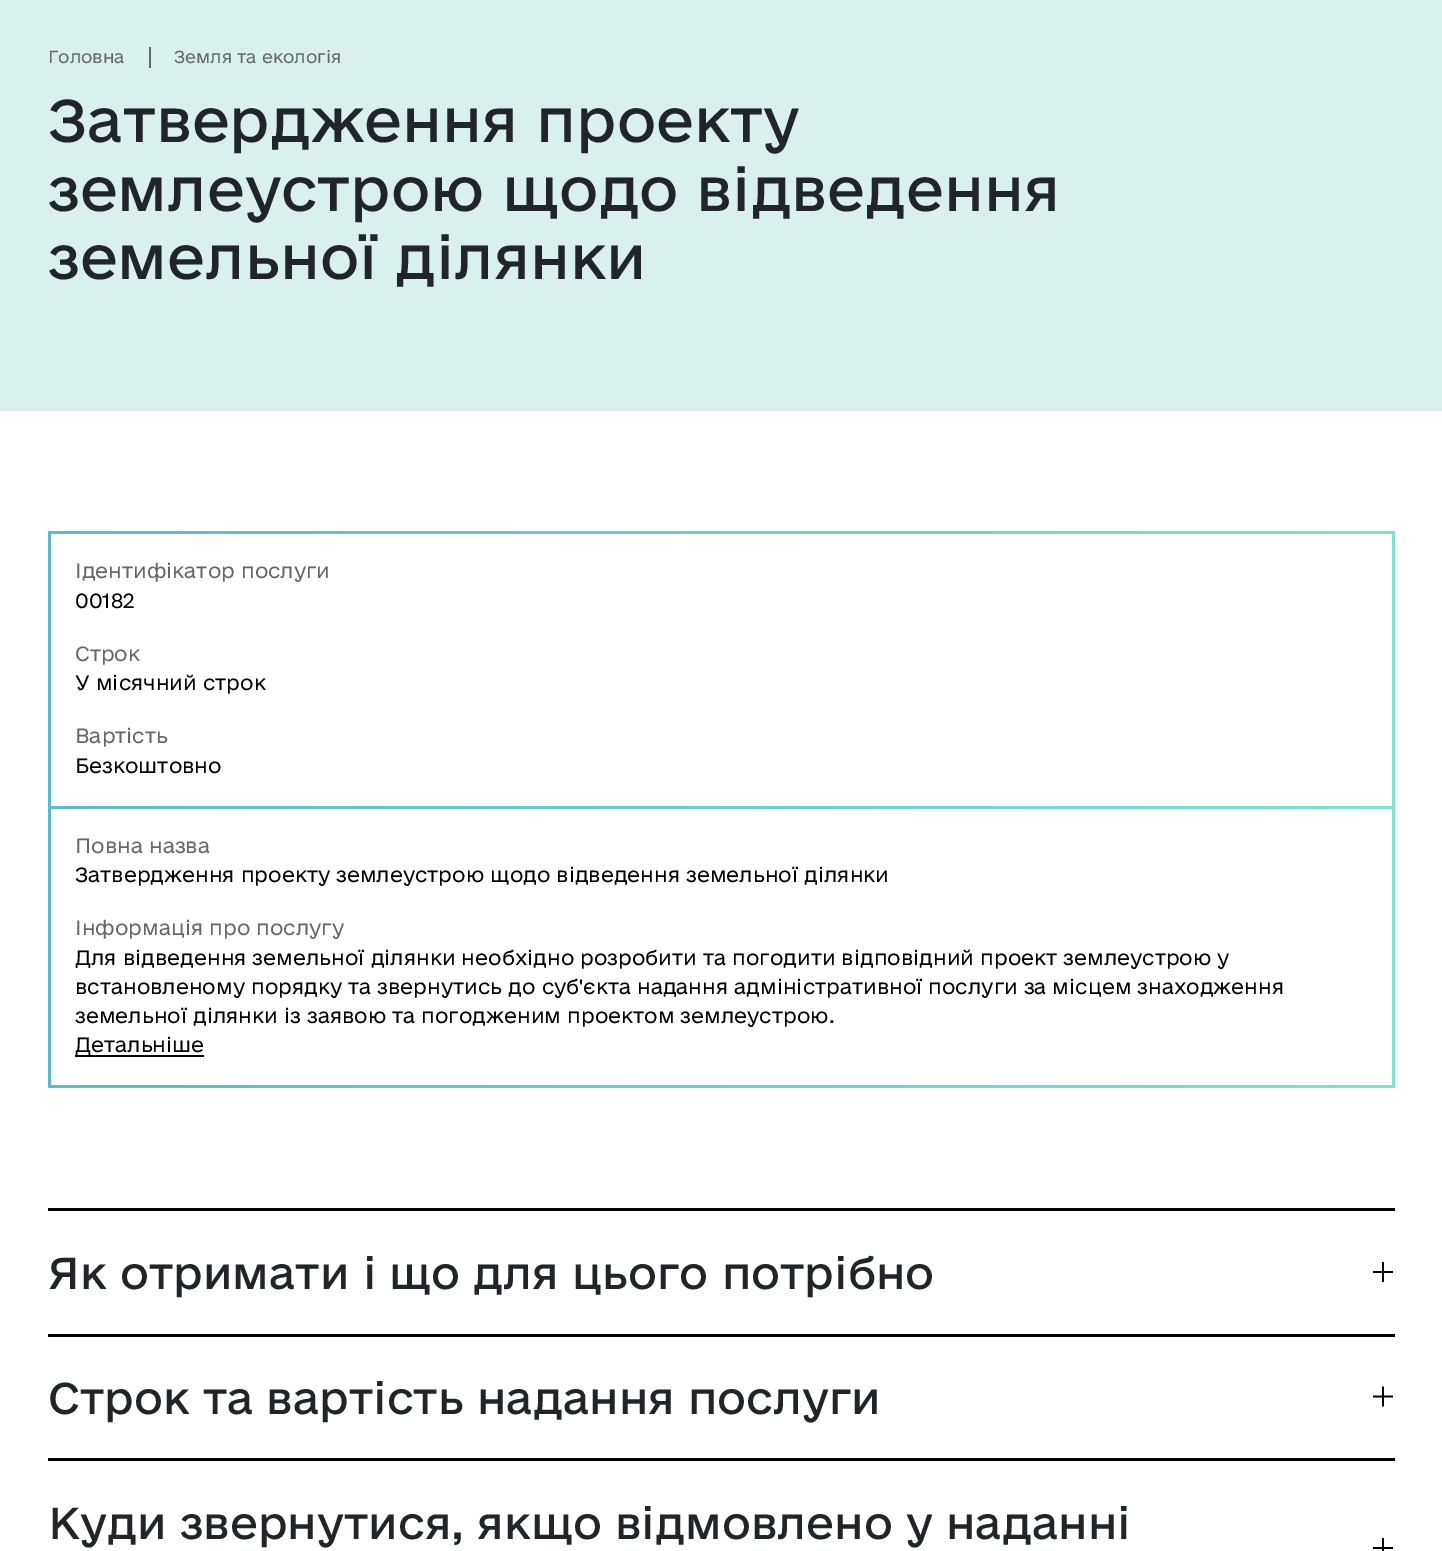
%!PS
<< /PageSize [1442 1551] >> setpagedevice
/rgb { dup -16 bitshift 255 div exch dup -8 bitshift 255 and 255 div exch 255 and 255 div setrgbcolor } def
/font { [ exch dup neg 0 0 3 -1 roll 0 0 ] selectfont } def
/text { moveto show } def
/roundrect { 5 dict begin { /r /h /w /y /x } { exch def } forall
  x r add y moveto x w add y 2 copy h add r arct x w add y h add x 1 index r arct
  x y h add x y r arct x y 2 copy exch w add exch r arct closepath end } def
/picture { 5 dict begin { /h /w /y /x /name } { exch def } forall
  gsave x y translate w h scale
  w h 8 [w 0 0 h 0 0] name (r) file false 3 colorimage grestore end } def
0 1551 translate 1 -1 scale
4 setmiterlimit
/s1 { /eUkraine-Light 16.5 font 16#646669 rgb } def
/s2 { /eUkraine-Regular 57 font 16#212529 rgb } def
/s3 { /eUkraine-Light 19.5 font 16#646669 rgb } def
/s4 { /eUkraine-Light 19.5 font 16#000000 rgb } def
/s5 { /eUkraine-Regular 42 font 16#212529 rgb } def
16#FFFFFF rgb
0 0 1442 1551 rectfill
16#DAF0ED rgb
0 0 1442 411 rectfill
s1
(Головна) 48 63 text
149 47 2 21 rectfill
(Земля та екологія) 174 63 text
s2
(Затвердження проекту) 48 142 text
(землеустрою щодо відведення) 48 211 text
(земельної ділянки) 48 279 text
gsave 48 531 1347 557 3 roundrect clip newpath
<< /ShadingType 2 /ColorSpace /DeviceRGB /Coords [31 812 1396 807] /Extend [true true] /Function << /FunctionType 2 /Domain [0 1] /C0 [0.369 0.725 0.788] /C1 [0.502 0.882 0.831] /N 1 >> >> shfill grestore
16#FFFFFF rgb
51 534 1341 272 rectfill
s3
(Ідентифікатор послуги) 75 578 text
s4
(00182) 75 608 text
s3
(Строк) 75 661 text
s4
(У місячний строк) 75 690 text
s3
(Вартість) 75 743 text
s4
(Безкоштовно) 75 773 text
16#FFFFFF rgb
51 809 1341 276 rectfill
s3
(Повна назва) 75 853 text
s4
(Затвердження проекту землеустрою щодо відведення земельної ділянки) 75 882 text
s3
(Інформація про послугу) 75 935 text
s4
(Для відведення земельної ділянки необхідно розробити та погодити відповідний проект землеустрою у) 75 965 text
(встановленому порядку та звернутись до суб'єкта надання адміністративної послуги за місцем знаходження) 75 994 text
(земельної ділянки із заявою та погодженим проектом землеустрою.) 75 1023 text
75 1055 129 2 rectfill
(Детальніше) 75 1052 text
48 1208 1347 3 rectfill
48 1334 1347 3 rectfill
s5
(Як отримати і що для цього потрібно) 48 1289 text
(pic1.raw) 1373 1262 20 20 picture
16#000000 rgb
48 1458 1347 3 rectfill
s5
(Строк та вартість надання послуги) 48 1414 text
(pic2.raw) 1373 1386 20 21 picture
(Куди звернутися, якщо відмовлено у наданні) 48 1539 text
(pic3.raw) 1373 1538 20 13 picture
showpage
